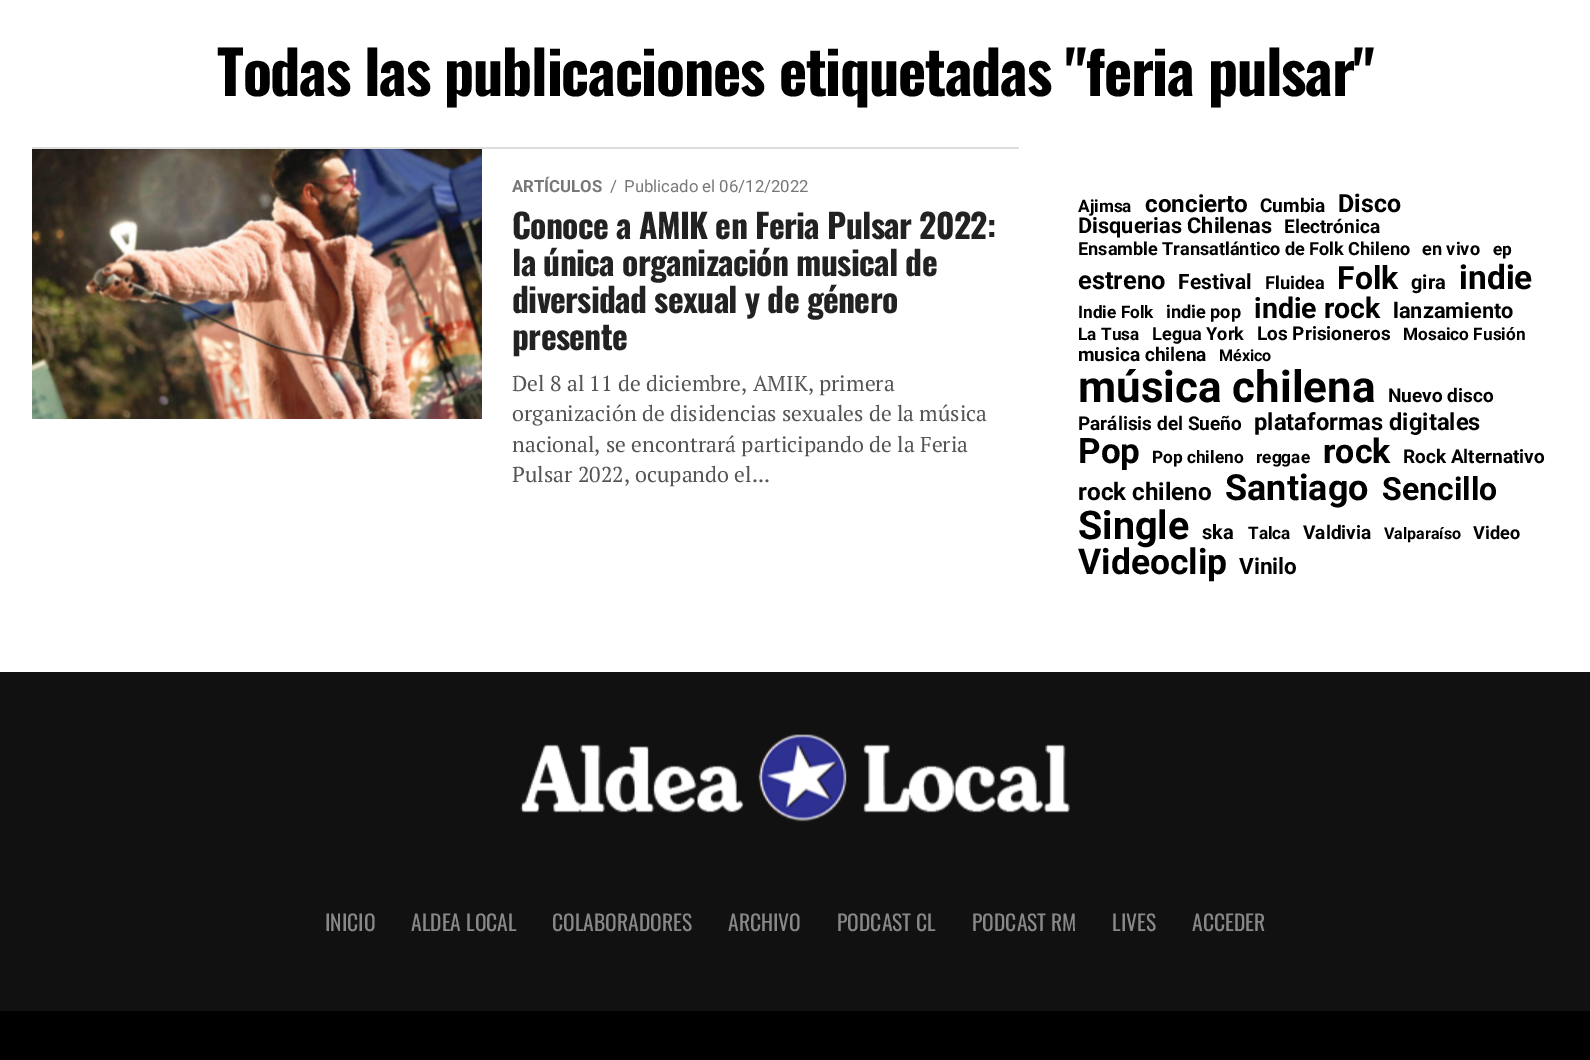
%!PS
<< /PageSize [1590 1060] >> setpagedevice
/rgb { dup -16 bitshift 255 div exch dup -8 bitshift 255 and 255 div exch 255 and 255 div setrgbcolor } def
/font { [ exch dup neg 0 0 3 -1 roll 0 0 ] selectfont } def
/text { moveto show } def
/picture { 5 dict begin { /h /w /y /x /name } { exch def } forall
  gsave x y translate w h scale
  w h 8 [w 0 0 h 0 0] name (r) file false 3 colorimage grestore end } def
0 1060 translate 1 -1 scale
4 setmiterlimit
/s1 { /Roboto-Bold 16.75 font 16#777777 rgb } def
/s2 { /Roboto-Regular 16.75 font 16#777777 rgb } def
/s3 { /PTSerif-Regular 21.6 font 16#555555 rgb } def
/s4 { /Roboto-Bold 17.25 font 16#000000 rgb } def
/s5 { /Roboto-Bold 24.25 font 16#000000 rgb } def
/s6 { /Roboto-Bold 19 font 16#000000 rgb } def
/s7 { /Roboto-Bold 25 font 16#000000 rgb } def
/s8 { /Roboto-Bold 21.75 font 16#000000 rgb } def
/s9 { /Roboto-Bold 18.1 font 16#000000 rgb } def
/s10 { /Roboto-Bold 25.5 font 16#000000 rgb } def
/s11 { /Roboto-Bold 21 font 16#000000 rgb } def
/s12 { /Roboto-Bold 32 font 16#000000 rgb } def
/s13 { /Roboto-Bold 20 font 16#000000 rgb } def
/s14 { /Roboto-Bold 33.5 font 16#000000 rgb } def
/s15 { /Roboto-Bold 28.5 font 16#000000 rgb } def
/s16 { /Roboto-Bold 16 font 16#000000 rgb } def
/s17 { /Roboto-Bold 44 font 16#000000 rgb } def
/s18 { /Roboto-Bold 23.75 font 16#000000 rgb } def
/s19 { /Roboto-Bold 35 font 16#000000 rgb } def
/s20 { /Roboto-Bold 34 font 16#000000 rgb } def
/s21 { /Roboto-Bold 36 font 16#000000 rgb } def
/s22 { /Roboto-Bold 39.5 font 16#000000 rgb } def
/s23 { /Roboto-Bold 35.5 font 16#000000 rgb } def
/s24 { /Roboto-Bold 22.5 font 16#000000 rgb } def
/s25 { /Oswald-Regular 21.6 font 16#888888 rgb } def
16#FFFFFF rgb
0 0 1590 1060 rectfill
/Oswald-Bold 60 font
16#000000 rgb
217 96 moveto -1.2 0 (Todas las publicaciones etiquetadas "feria pulsar") ashow
16#DDDDDD rgb
32 147 987 2 rectfill
(pic1.raw) 32 149 450 270 picture
s1
(ARTÍCULOS) 512 192 text
s2
(/) 610 192 text
(Publicado el 06/12/2022) 624 192 text
/Oswald-Bold 33.6 font
16#222222 rgb
512 239 moveto -0.65 0 (Conoce a AMIK en Feria Pulsar 2022:) ashow
512 276 moveto -0.65 0 (la única organización musical de) ashow
512 313 moveto -0.65 0 (diversidad sexual y de género) ashow
512 350 moveto -0.65 0 (presente) ashow
s3
(Del 8 al 11 de diciembre, AMIK, primera) 512 391 text
(organización de disidencias sexuales de la música) 512 421 text
(nacional, se encontrará participando de la Feria) 512 452 text
(Pulsar 2022, ocupando el...) 512 482 text
s4
(Ajimsa) 1078 212 text
s5
(concierto) 1145 212 text
s6
(Cumbia) 1260 212 text
s7
(Disco) 1338 212 text
s8
(Disquerias Chilenas) 1078 233 text
s6
(Electrónica) 1284 233 text
s9
(Ensamble Transatlántico de Folk Chileno) 1078 255 text
(en vivo) 1422 255 text
s4
(ep) 1493 255 text
s10
(estreno) 1078 289 text
s11
(Festival) 1178 289 text
s9
(Fluidea) 1265 289 text
s12
(Folk) 1337 289 text
s13
(gira) 1411 289 text
s14
(indie) 1459 289 text
s4
(Indie Folk) 1078 318 text
s9
(indie pop) 1166 318 text
s15
(indie rock) 1254 318 text
s8
(lanzamiento) 1393 318 text
s4
(La Tusa) 1078 340 text
s9
(Legua York) 1152 340 text
s6
(Los Prisioneros) 1257 340 text
s4
(Mosaico Fusión) 1403 340 text
s6
(musica chilena) 1078 361 text
s16
(México) 1219 361 text
s17
(música chilena) 1078 402 text
s6
(Nuevo disco) 1388 402 text
(Parálisis del Sueño) 1078 430 text
s18
(plataformas digitales) 1254 430 text
s19
(Pop) 1078 463 text
s4
(Pop chileno) 1152 463 text
(reggae) 1256 463 text
s20
(rock) 1323 463 text
s6
(Rock Alternativo) 1403 463 text
s5
(rock chileno) 1078 500 text
s21
(Santiago) 1225 500 text
s12
(Sencillo) 1382 500 text
s22
(Single) 1078 539 text
s13
(ska) 1202 539 text
s4
(Talca) 1248 539 text
s6
(Valdivia) 1303 539 text
s16
(Valparaíso) 1384 539 text
s9
(Video) 1473 539 text
s23
(Videoclip) 1078 574 text
s24
(Vinilo) 1239 574 text
16#111111 rgb
0 672 1590 339 rectfill
(pic2.raw) 520 734 550 88 picture
s25
(INICIO) 325 931 text
(ALDEA LOCAL) 411 931 text
(COLABORADORES) 552 931 text
(ARCHIVO) 728 931 text
(PODCAST CL) 837 931 text
(PODCAST RM) 972 931 text
(LIVES) 1112 931 text
(ACCEDER) 1192 931 text
16#000000 rgb
0 1011 1590 49 rectfill
showpage
